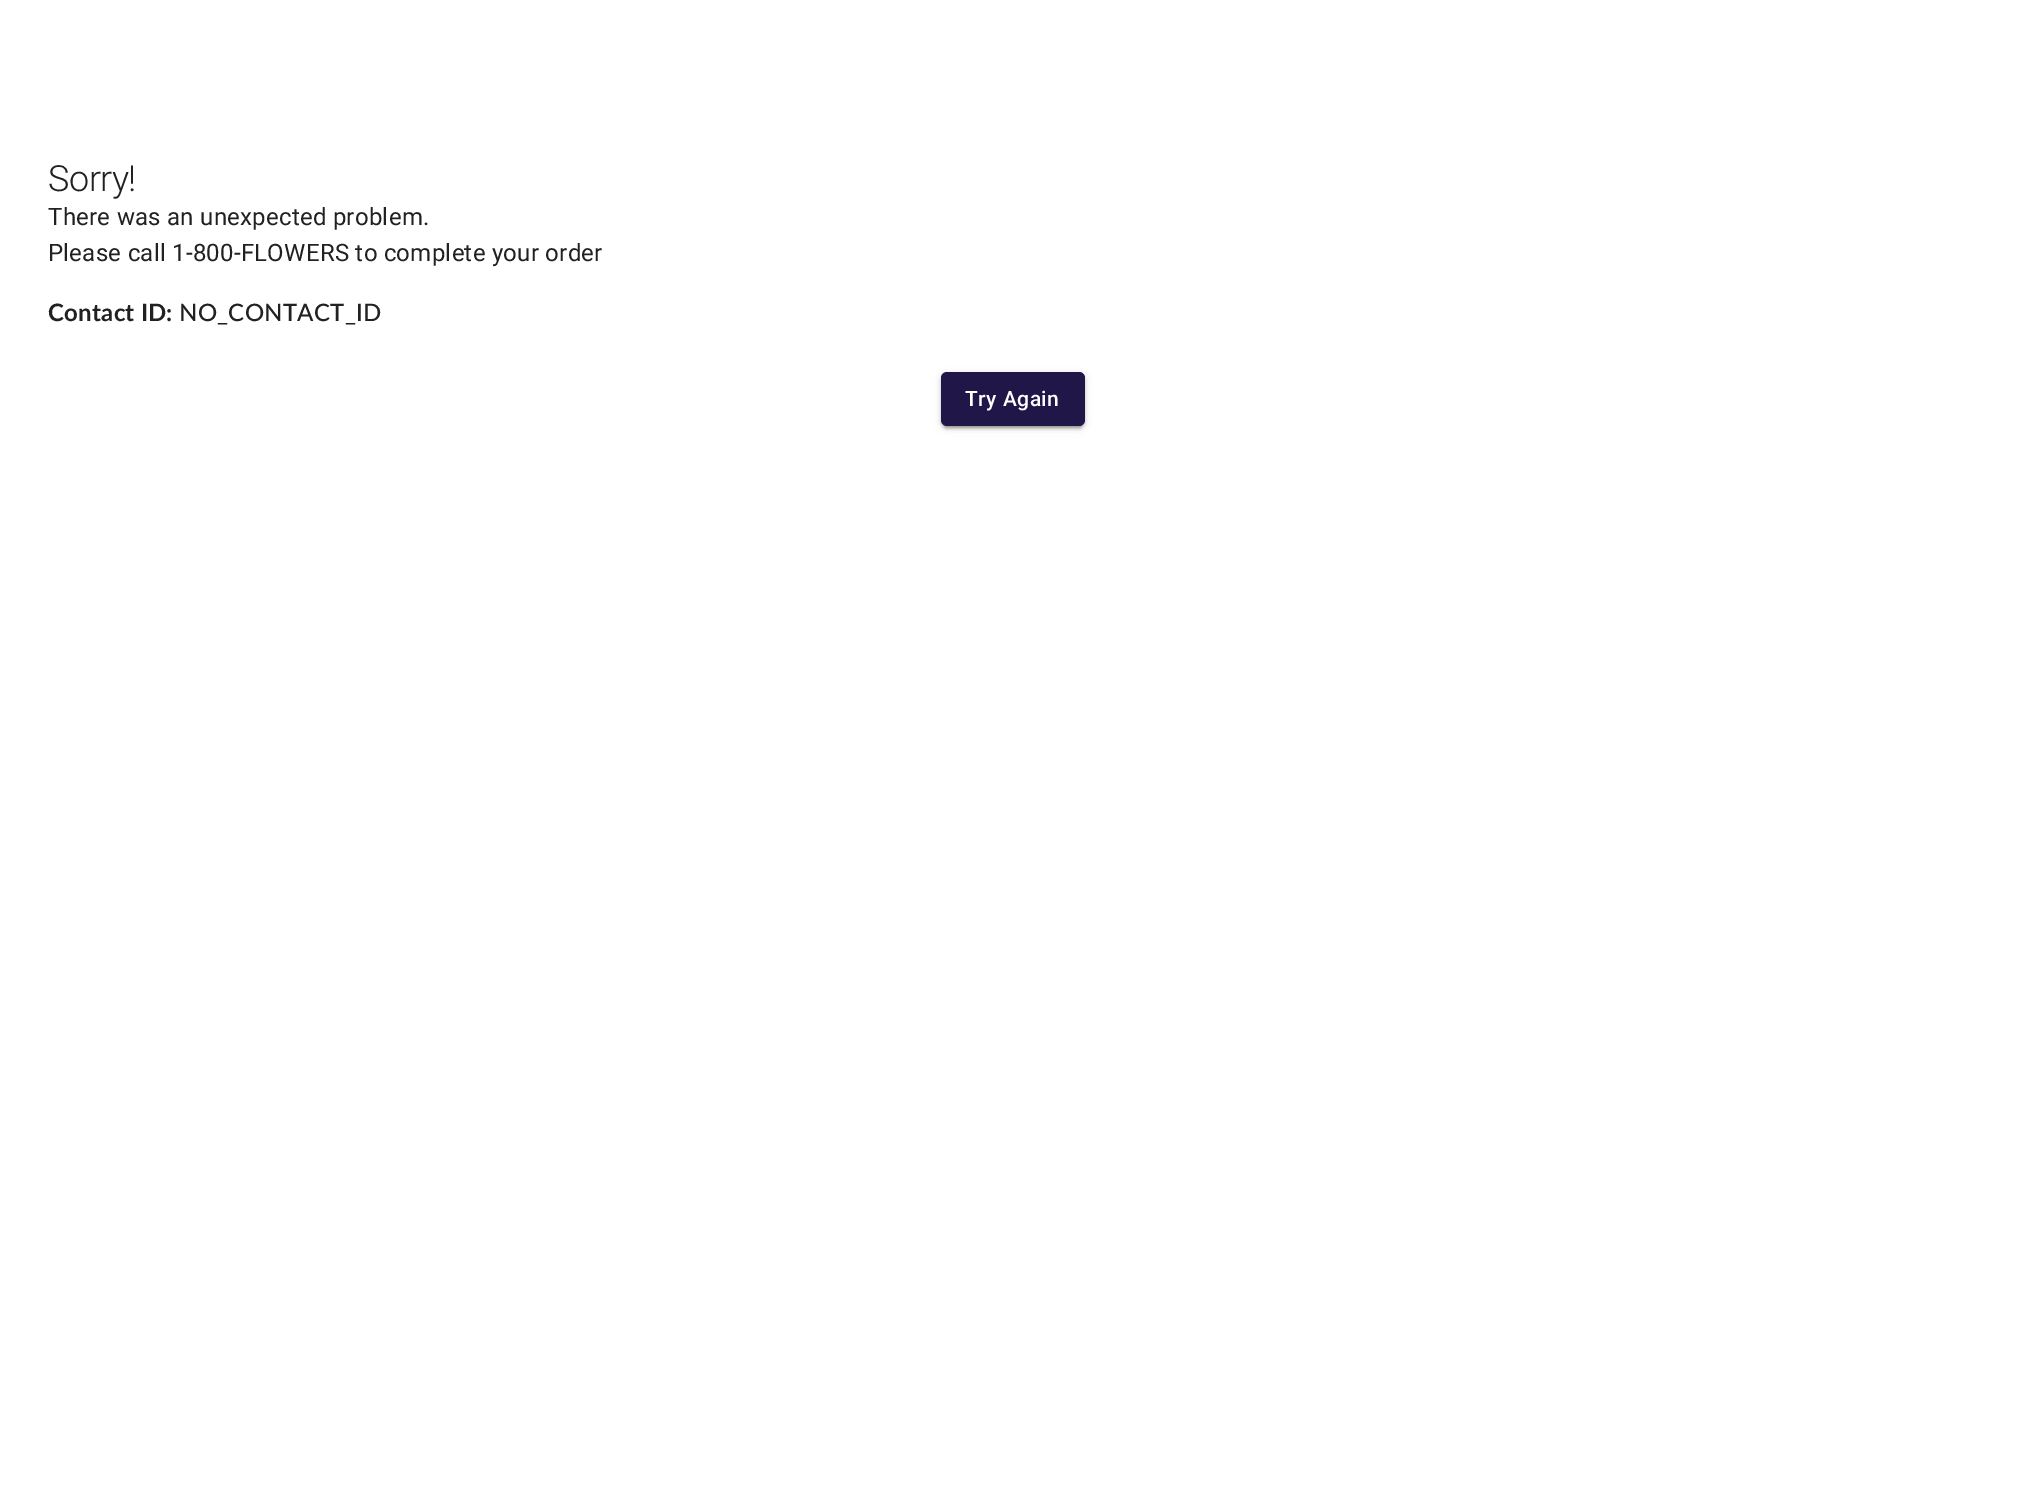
%!PS
<< /PageSize [2024 1489] /PageUsesTransparency true >> setpagedevice
/rgb { dup -16 bitshift 255 div exch dup -8 bitshift 255 and 255 div exch 255 and 255 div setrgbcolor } def
/font { [ exch dup neg 0 0 3 -1 roll 0 0 ] selectfont } def
/alpha { dup .setfillconstantalpha .setstrokeconstantalpha } def
/roundrect { 5 dict begin { /r /h /w /y /x } { exch def } forall
  x r add y moveto x w add y 2 copy h add r arct x w add y h add x 1 index r arct
  x y h add x y r arct x y 2 copy exch w add exch r arct closepath end } def
/shadow { 12 dict begin { /a /b /q /h /w /y /x } { exch def } forall gsave /was 0 def
  9 -2 -9 { dup b mul 4 div /e exch def 1 sub .425 mul 2.718 exch exp 1 add a .99 .min exch div /now exch def
    1 1 now sub 1 was sub div sub alpha /was now def
    w h .min e 2 mul add 0 gt { x e sub y e sub w e 2 mul add h e 2 mul add
      q e add b .6 mul add w h .min 2 div e add .min 0 .max roundrect fill } if } for grestore end } def
0 .pushpdf14devicefilter
0 1489 translate 1 -1 scale
4 setmiterlimit
16#FFFFFF rgb
0 0 2024 1489 rectfill
/Roboto-Light 36 font
16#212121 rgb
48 191 moveto -0.5 0 (Sorry!) ashow
/Roboto-Regular 24 font
48 225 moveto 0.25 0 (There was an unexpected problem.) ashow
48 261 moveto 0.25 0 (Please call 1-800-FLOWERS to complete your order) ashow
/Lato-Bold 24 font
48 321 moveto 0.25 0 (Contact ID:) ashow
/Lato-Medium 24 font
179 321 moveto 0.25 0 (NO_CONTACT_ID) ashow
16#000000 rgb
941 374 144 54 6 4 0.12 shadow
941 375 144 54 6 1.5 0.14 shadow
944 380 138 48 3 1 0.2 shadow
16#201648 rgb
941 372 144 54 6 roundrect fill
/Roboto-Medium 21 font
16#FFFFFF rgb
965 406 moveto 0.5 0 (Try Again) ashow
.poppdf14devicefilter showpage
